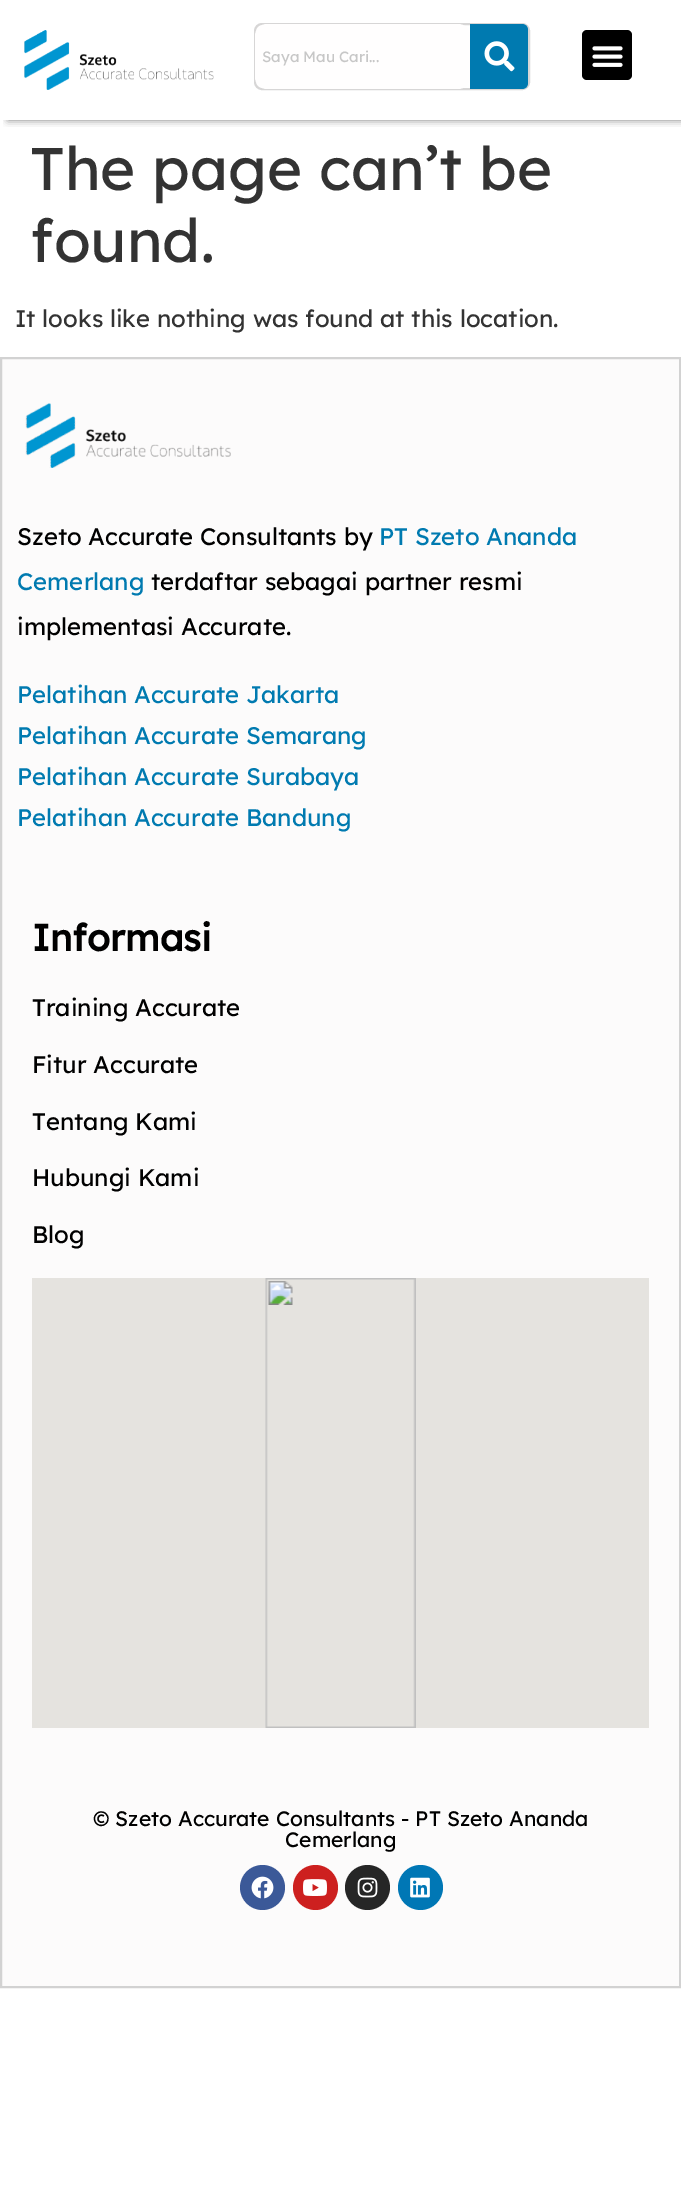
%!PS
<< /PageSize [681 2191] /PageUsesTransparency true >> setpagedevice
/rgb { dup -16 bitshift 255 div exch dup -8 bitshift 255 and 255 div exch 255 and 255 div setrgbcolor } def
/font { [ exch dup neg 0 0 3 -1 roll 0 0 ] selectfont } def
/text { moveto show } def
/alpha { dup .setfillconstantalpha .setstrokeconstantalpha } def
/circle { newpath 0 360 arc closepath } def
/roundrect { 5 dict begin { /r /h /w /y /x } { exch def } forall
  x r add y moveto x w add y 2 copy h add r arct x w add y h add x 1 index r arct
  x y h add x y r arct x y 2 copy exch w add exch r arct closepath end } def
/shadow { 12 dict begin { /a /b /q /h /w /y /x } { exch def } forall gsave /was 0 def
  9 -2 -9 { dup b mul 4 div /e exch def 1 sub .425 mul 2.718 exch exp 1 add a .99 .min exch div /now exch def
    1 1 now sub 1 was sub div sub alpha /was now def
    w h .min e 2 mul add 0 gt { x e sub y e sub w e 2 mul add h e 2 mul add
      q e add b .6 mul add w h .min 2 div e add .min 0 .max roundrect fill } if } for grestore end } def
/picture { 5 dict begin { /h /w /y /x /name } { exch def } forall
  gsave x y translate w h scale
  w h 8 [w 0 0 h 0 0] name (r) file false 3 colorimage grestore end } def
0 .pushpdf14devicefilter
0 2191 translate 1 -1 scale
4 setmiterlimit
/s1 { /Lexend-Regular 15 font 16#C7C7C7 rgb } def
/s2 { /Lexend-Regular 60 font 16#333333 rgb } def
/s3 { /Lexend-Regular 24 font 16#333333 rgb } def
/s4 { /Lexend-Regular 24 font 16#000000 rgb } def
/s5 { /Lexend-Regular 24 font 16#007AB0 rgb } def
/s6 { /Lexend-Bold 37.5 font 16#000000 rgb } def
/s7 { /Lexend-Regular 21 font 16#000000 rgb } def
16#FFFFFF rgb
0 0 681 2191 rectfill
gsave
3 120 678 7 rectclip
16#000000 rgb
8 0 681 120 0 4 0.5 shadow
grestore
(pic1.raw) 24 30 190 60 picture
16#D7D6D6 rgb
2 setlinewidth
255 24 274 65 7 roundrect stroke
16#FFFEFE rgb
255 24 215 65 12 roundrect fill
s1
(Saya Mau Cari...) 262 62 text
16#007AB0 rgb
470 24 moveto 522 24 lineto 525.5 24 528 26.5 528 30 curveto 528 83 lineto 528 86.5 525.5 89 522 89 curveto 470 89 lineto closepath fill
(pic2.raw) 484 41 31 31 picture
16#000000 rgb
582 30 50 50 5 roundrect fill
(pic3.raw) 592 46 31 21 picture
s2
(The page can’t be) 30 190 text
(found.) 30 262 text
s3
(It looks like nothing was found at this location.) 15 327 text
16#FCFBFB rgb
1 358 moveto 680 358 lineto 680 1987 lineto 1 1987 lineto closepath gsave fill grestore
16#D2D2D2 rgb
stroke
(pic4.raw) 25 403 206 65 picture
s4
(Szeto Accurate Consultants by) 17 545 text
s5
(PT Szeto Ananda) 379 545 text
(Cemerlang) 17 590 text
s4
(terdaftar sebagai partner resmi) 151 590 text
(implementasi Accurate.) 17 635 text
s5
(Pelatihan Accurate Jakarta) 17 703 text
(Pelatihan Accurate Semarang) 17 744 text
(Pelatihan Accurate Surabaya) 17 785 text
(Pelatihan Accurate Bandung) 17 826 text
s6
(Informasi) 32 951 text
s4
(Training Accurate) 32 1016 text
(Fitur Accurate) 32 1073 text
(Tentang Kami) 32 1130 text
(Hubungi Kami) 32 1186 text
(Blog) 32 1243 text
(pic5.raw) 32 1278 617 450 picture
s7
(© Szeto Accurate Consultants - PT Szeto Ananda) 93 1826 text
(Cemerlang) 285 1847 text
16#3B5998 rgb
262.5 1887.5 22.5 circle fill
(pic6.raw) 251 1876 23 23 picture
16#CD201F rgb
315.5 1887.5 22.5 circle fill
(pic7.raw) 303 1879 24 17 picture
16#262626 rgb
367.5 1887.5 22.5 circle fill
(pic8.raw) 357 1877 21 21 picture
16#0077B5 rgb
420.5 1887.5 22.5 circle fill
(pic9.raw) 410 1877 20 21 picture
.poppdf14devicefilter showpage
